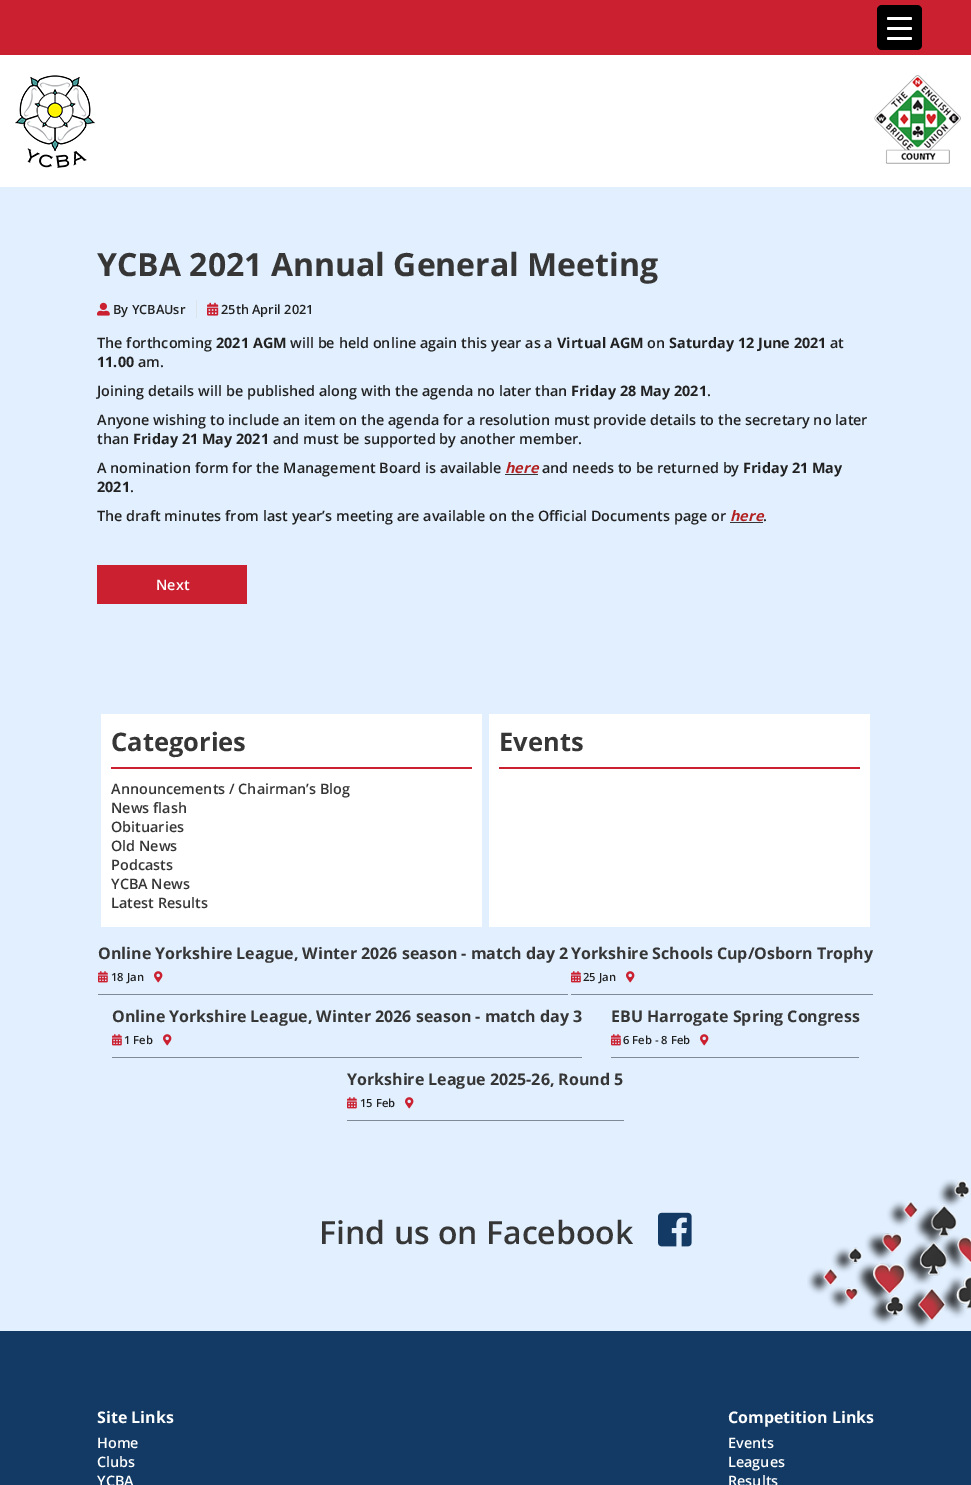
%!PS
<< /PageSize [971 1485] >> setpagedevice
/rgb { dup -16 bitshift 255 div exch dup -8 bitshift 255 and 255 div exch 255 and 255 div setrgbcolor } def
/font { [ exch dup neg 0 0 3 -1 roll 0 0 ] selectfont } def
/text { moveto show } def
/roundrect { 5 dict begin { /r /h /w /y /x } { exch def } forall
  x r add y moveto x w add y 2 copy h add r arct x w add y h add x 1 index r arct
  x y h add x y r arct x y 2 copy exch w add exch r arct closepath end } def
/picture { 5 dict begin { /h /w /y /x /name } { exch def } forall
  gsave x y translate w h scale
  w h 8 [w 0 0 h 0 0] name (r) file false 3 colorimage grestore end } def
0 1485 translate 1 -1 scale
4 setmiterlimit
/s1 { /OpenSans-Bold 32 font 16#363636 rgb } def
/s2 { /OpenSans-SemiBold 12.75 font 16#212121 rgb } def
/s3 { /OpenSans-SemiBold 14.4 font 16#212121 rgb } def
/s4 { /OpenSans-Bold 14.4 font 16#212121 rgb } def
/s5 { /OpenSans-BoldItalic 14.4 font 16#B22222 rgb } def
/s6 { /OpenSans-SemiBold 14.4 font 16#FFFFFF rgb } def
/s7 { /OpenSans-Bold 25.5 font 16#363636 rgb } def
/s8 { /OpenSans-SemiBold 14.4 font 16#363636 rgb } def
/s9 { /OpenSans-Bold 16 font 16#363636 rgb } def
/s10 { /OpenSans-SemiBold 11.25 font 16#212121 rgb } def
/s11 { /OpenSans-SemiBold 32 font 16#363636 rgb } def
/s12 { /OpenSans-Bold 16 font 16#FFFFFF rgb } def
16#E1EFFF rgb
0 0 971 1485 rectfill
16#CA2030 rgb
0 0 971 55 rectfill
16#FFFFFF rgb
0 55 971 132 rectfill
(pic1.raw) 15 75 80 93 picture
(pic2.raw) 874 75 87 89 picture
16#000000 rgb
877 5 45 45 5 roundrect fill
16#FFFFFF rgb
887 27 25 3 1.5 roundrect fill
887 17 25 3 1.5 roundrect fill
887 37 25 3 1.5 roundrect fill
(pic3.raw) 807 1179 164 151 picture
s1
(YCBA 2021 Annual General Meeting) 97 276 text
16#DCE3EA rgb
196 300 1 18 rectfill
(pic4.raw) 97 302 13 14 picture
s2
(By YCBAUsr) 113 314 text
(pic5.raw) 207 302 12 14 picture
(25th April 2021) 221 314 text
s3
(The forthcoming) 97 348 text
s4
(2021 AGM) 216 348 text
s3
(will be held online again this year as a) 290 348 text
s4
(Virtual AGM) 557 348 text
s3
(on) 647 348 text
s4
(Saturday 12 June 2021) 669 348 text
s3
(at) 830 348 text
s4
(11.00) 97 367 text
s3
(am.) 138 367 text
(Joining details will be published along with the agenda no later than) 97 396 text
s4
(Friday 28 May 2021) 571 396 text
s3
(.) 707 396 text
(Anyone wishing to include an item on the agenda for a resolution must provide details to the secretary no later) 97 425 text
(than) 97 444 text
s4
(Friday 21 May 2021) 133 444 text
s3
(and must be supported by another member.) 273 444 text
(A nomination form for the Management Board is available) 97 473 text
s5
(here) 505 473 text
16#363636 rgb
505 474 33 1 rectfill
s3
(and needs to be returned by) 542 473 text
s4
(Friday 21 May) 743 473 text
(2021) 97 492 text
s3
(.) 130 492 text
(The draft minutes from last year’s meeting are available on the Official Documents page or) 97 521 text
s5
(here) 730 521 text
16#363636 rgb
730 522 33 1 rectfill
s3
(.) 763 521 text
16#CA2030 rgb
97 565 150 39 rectfill
s6
(Next) 156 590 text
101 714 381 213 rectfill
16#CA2030 rgb
111 767 361 2 rectfill
s7
(Categories) 111 751 text
s8
(Announcements / Chairman’s Blog) 111 794 text
(News flash) 111 813 text
(Obituaries) 111 832 text
(Old News) 111 851 text
(Podcasts) 111 870 text
(YCBA News) 111 889 text
(Latest Results) 111 908 text
16#FFFFFF rgb
489 714 381 213 rectfill
16#CA2030 rgb
499 767 361 2 rectfill
s7
(Events) 499 751 text
16#7F8A96 rgb
98 994 470 1 rectfill
s9
(Online Yorkshire League, Winter 2026 season - match day 2) 98 959 text
(pic6.raw) 98 971 10 12 picture
s10
(18 Jan) 111 981 text
(pic7.raw) 154 971 9 12 picture
16#7F8A96 rgb
571 994 302 1 rectfill
s9
(Yorkshire Schools Cup/Osborn Trophy) 571 959 text
(pic6.raw) 571 971 10 12 picture
s10
(25 Jan) 583 981 text
(pic7.raw) 626 971 9 12 picture
16#7F8A96 rgb
112 1057 470 1 rectfill
s9
(Online Yorkshire League, Winter 2026 season - match day 3) 112 1022 text
(pic6.raw) 112 1034 10 12 picture
s10
(1 Feb) 124 1044 text
(pic7.raw) 163 1034 9 12 picture
16#7F8A96 rgb
611 1057 248 1 rectfill
s9
(EBU Harrogate Spring Congress) 611 1022 text
(pic6.raw) 611 1034 10 12 picture
s10
(6 Feb - 8 Feb) 623 1044 text
(pic7.raw) 700 1034 9 12 picture
16#7F8A96 rgb
347 1120 277 1 rectfill
s9
(Yorkshire League 2025-26, Round 5) 347 1085 text
(pic6.raw) 347 1097 10 12 picture
s10
(15 Feb) 360 1107 text
(pic7.raw) 405 1097 9 12 picture
s11
(Find us on Facebook) 319 1244 text
(pic8.raw) 658 1212 34 35 picture
16#133A64 rgb
0 1331 971 154 rectfill
s12
(Site Links) 97 1423 text
s6
(Home) 97 1448 text
(Clubs) 97 1467 text
(YCBA) 97 1486 text
s12
(Competition Links) 728 1423 text
s6
(Events) 728 1448 text
(Leagues) 728 1467 text
(Results) 728 1486 text
showpage
